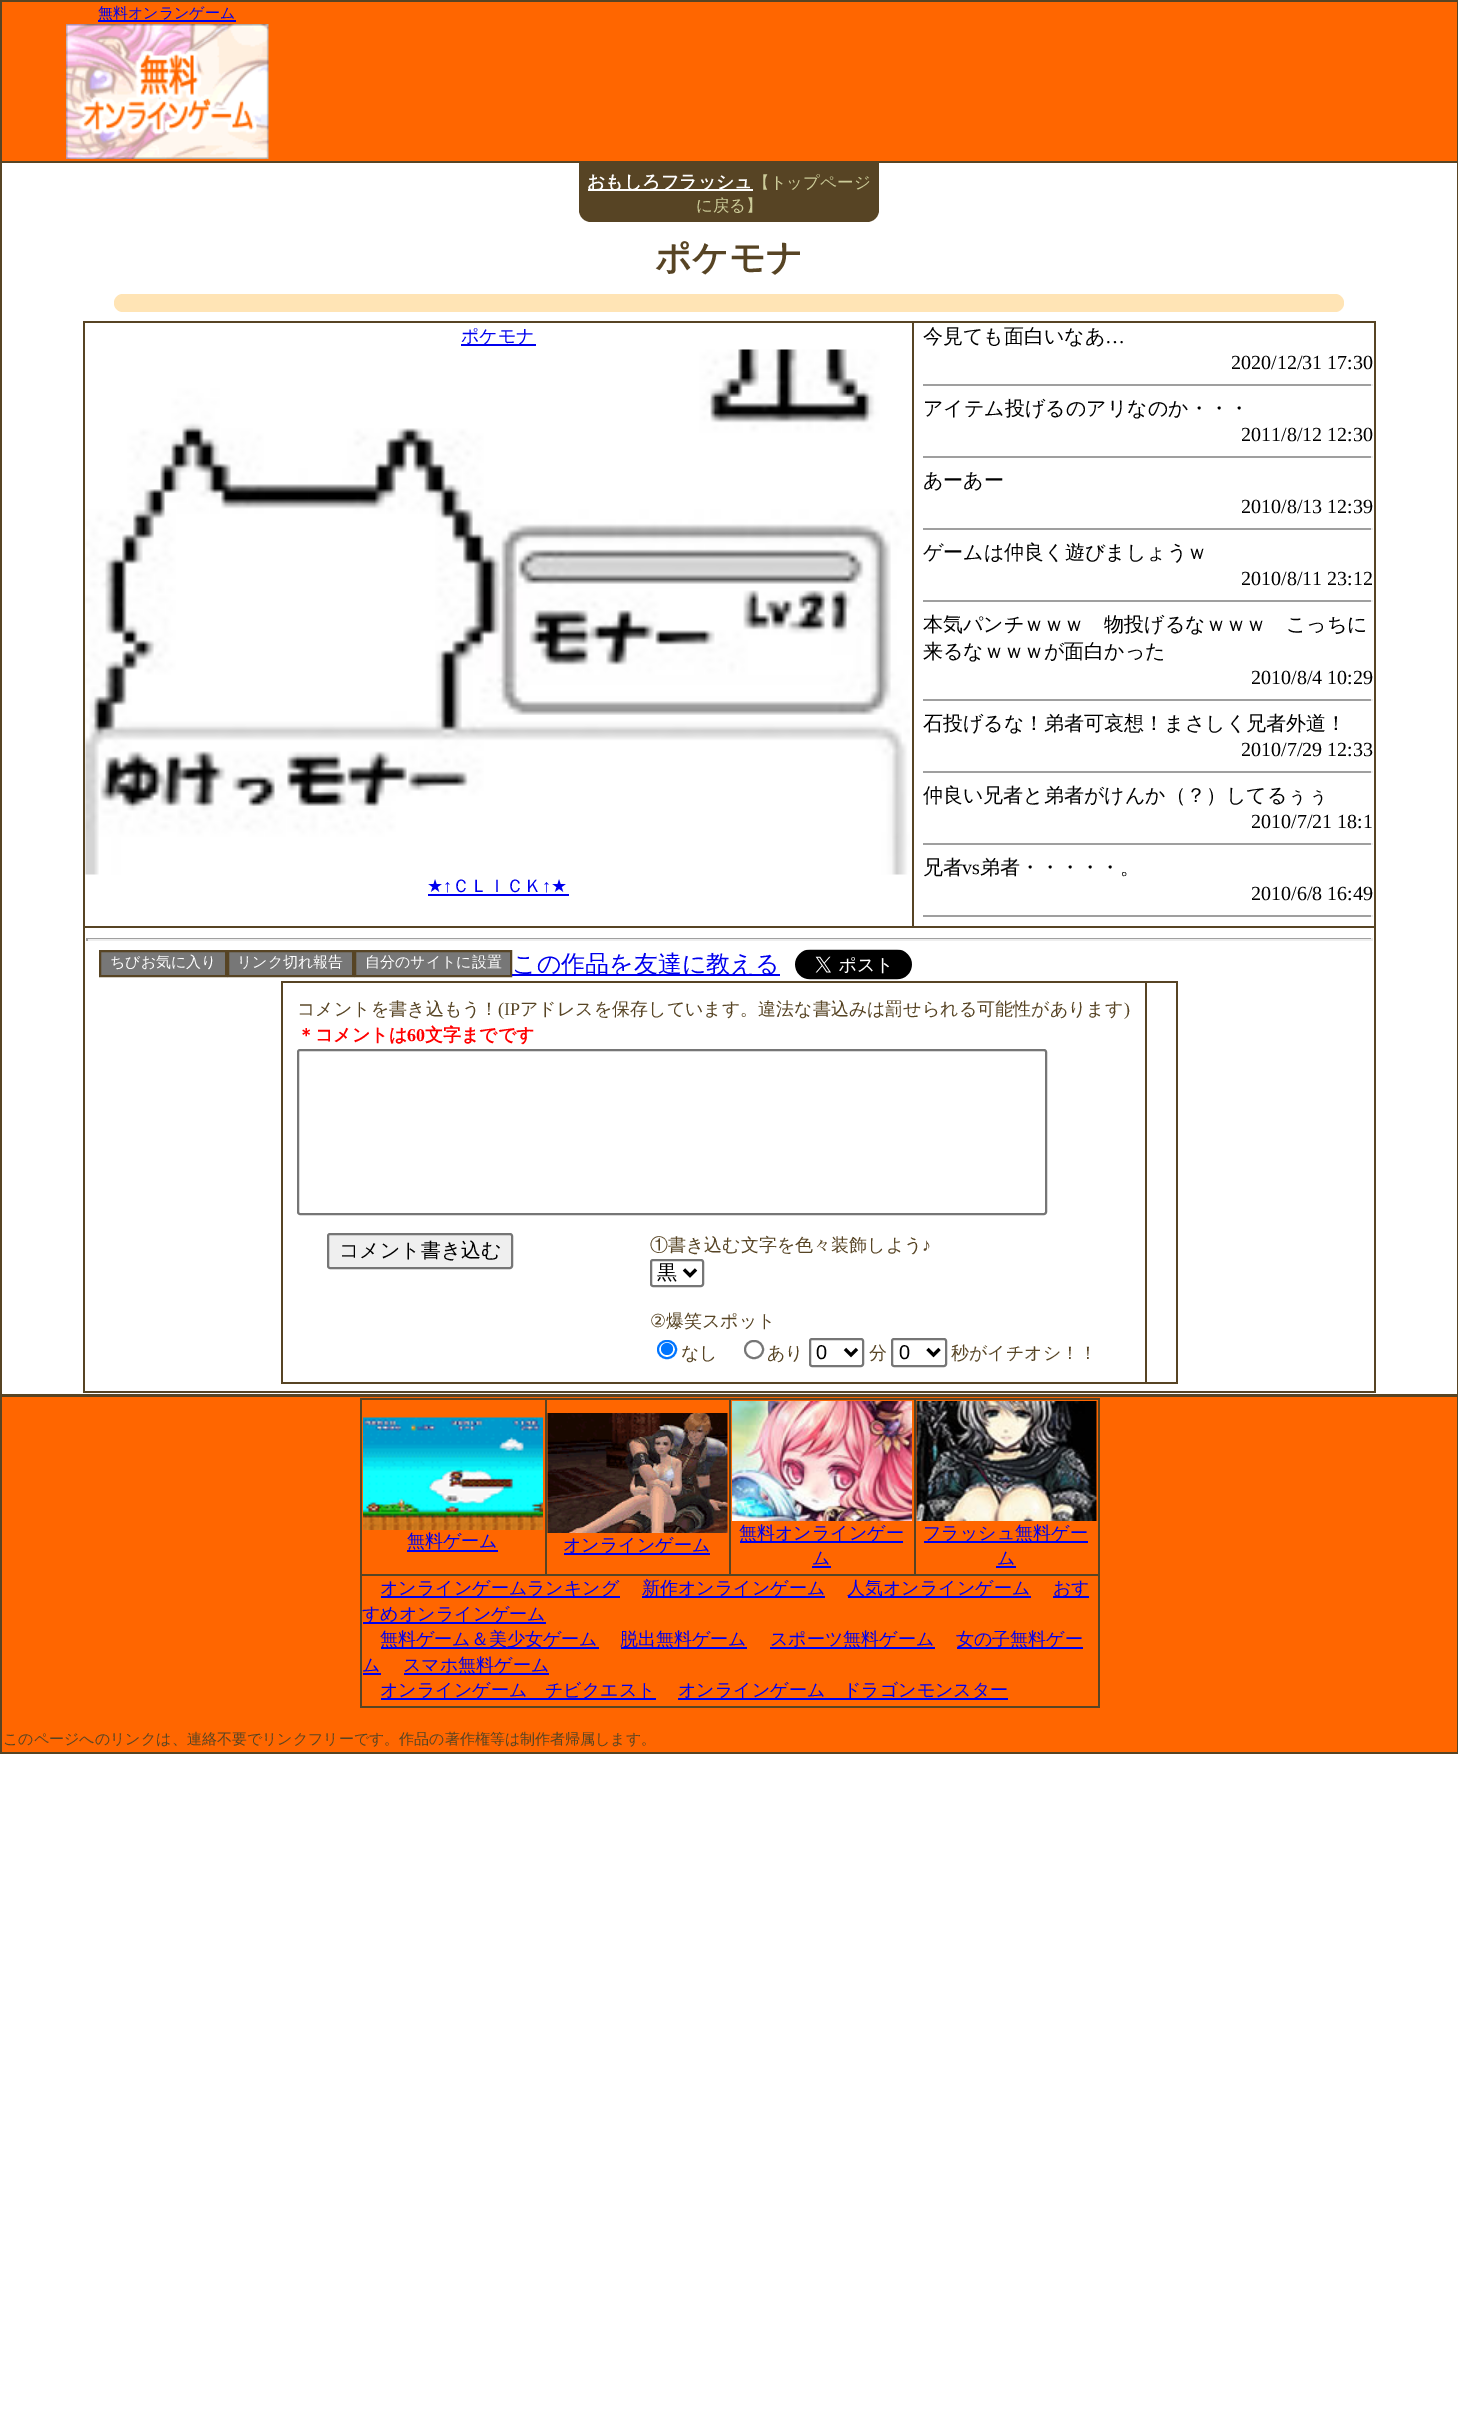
%!PS
<< /PageSize [1458 2415] >> setpagedevice
/rgb { dup -16 bitshift 255 div exch dup -8 bitshift 255 and 255 div exch 255 and 255 div setrgbcolor } def
/font { [ exch dup neg 0 0 3 -1 roll 0 0 ] selectfont } def
/text { moveto show } def
/circle { newpath 0 360 arc closepath } def
/roundrect { 5 dict begin { /r /h /w /y /x } { exch def } forall
  x r add y moveto x w add y 2 copy h add r arct x w add y h add x 1 index r arct
  x y h add x y r arct x y 2 copy exch w add exch r arct closepath end } def
/picture { 5 dict begin { /h /w /y /x /name } { exch def } forall
  gsave x y translate w h scale
  w h 8 [w 0 0 h 0 0] name (r) file false 3 colorimage grestore end } def
0 2415 translate 1 -1 scale
4 setmiterlimit
/s1 { /WenQuanYiZenHei-Medium 15 font 16#0000EE rgb } def
/s2 { /WenQuanYiZenHei-Bold 18 font 16#FFFFFF rgb } def
/s3 { /WenQuanYiZenHei-Medium 16.5 font 16#CCCC99 rgb } def
/s4 { /WenQuanYiZenHei-Bold 36 font 16#574424 rgb } def
/s5 { /WenQuanYiZenHei-Medium 18 font 16#0000EE rgb } def
/s6 { /DejaVuSans-Regular 18 font 16#0000EE rgb } def
/s7 { /LiberationSerif-Regular 18 font 16#0000EE rgb } def
/s8 { /WenQuanYiZenHei-Medium 20 font 16#000000 rgb } def
/s9 { /LiberationSerif-Regular 20 font 16#000000 rgb } def
/s10 { /WenQuanYiZenHei-Medium 15 font 16#FFFFFF rgb } def
/s11 { /WenQuanYiZenHei-Medium 24 font 16#0000EE rgb } def
/s12 { /WenQuanYiZenHei-Medium 18 font 16#574424 rgb } def
/s13 { /LiberationSerif-Regular 18 font 16#574424 rgb } def
/s14 { /WenQuanYiZenHei-Bold 18 font 16#FF0000 rgb } def
/s15 { /LiberationSerif-Bold 18 font 16#FF0000 rgb } def
/s16 { /DejaVuSans-Regular 18 font 16#574424 rgb } def
/s17 { /LiberationSans-Regular 20 font 16#000000 rgb } def
/s18 { /WenQuanYiZenHei-Medium 15 font 16#574424 rgb } def
16#FFFFFF rgb
0 0 1458 2415 rectfill
16#574424 rgb
0 0 1458 2 rectfill
1457 0 1 1395 rectfill
0 1394 1458 3 rectfill
0 0 2 1395 rectfill
16#FF6600 rgb
2 2 1455 159 rectfill
16#0000EE rgb
98 20 138 2 rectfill
s1
(無料オンランゲーム) 98 18 text
(pic1.raw) 66 24 203 135 picture
16#574424 rgb
579 162 moveto 879 162 lineto 879 210 lineto 879 216.5 873.5 222 867 222 curveto 591 222 lineto 584.5 222 579 216.5 579 210 curveto closepath fill
0 161 1458 2 rectfill
16#FFFFFF rgb
588 189 165 2 rectfill
s2
(おもしろフラッシュ) 587 188 text
s3
(【トップページ) 753 188 text
(に戻る】) 696 211 text
s4
(ポケモナ) 655 270 text
16#FFE4B5 rgb
114 294 1230 18 9 roundrect fill
16#574424 rgb
83 321 1293 2 rectfill
1374 321 2 1071 rectfill
83 1391 1293 2 rectfill
83 321 2 1071 rectfill
16#0000EE rgb
461 344 75 2 rectfill
s5
(ポケモナ) 461 342 text
(pic2.raw) 85 349 825 526 picture
s6
(★) 427 892 text
s7
(↑) 443 892 text
428 894 141 2 rectfill
s5
(ＣＬＩＣＫ) 452 892 text
s7
(↑) 542 892 text
s6
(★) 551 892 text
16#574424 rgb
83 926 1293 2 rectfill
912 321 2 606 rectfill
s8
(今見ても面白いなあ) 923 343 text
s9
(…) 1105 343 text
(2020/12/31 17:30) 1231 369 text
16#9F9F9F rgb
923 384 450 2 rectfill
16#EEEEEE rgb
1371 384 2 2 rectfill
s8
(アイテム投げるのアリなのか・・・) 923 415 text
s9
(2011/8/12 12:30) 1241 441 text
16#9F9F9F rgb
923 456 450 2 rectfill
16#EEEEEE rgb
1371 456 2 2 rectfill
s8
(あーあー) 923 487 text
s9
(2010/8/13 12:39) 1241 513 text
16#9F9F9F rgb
923 528 450 2 rectfill
16#EEEEEE rgb
1371 528 2 2 rectfill
s8
(ゲームは仲良く遊びましょうｗ) 923 559 text
s9
(2010/8/11 23:12) 1241 585 text
16#9F9F9F rgb
923 600 450 2 rectfill
16#EEEEEE rgb
1371 600 2 2 rectfill
s8
(本気パンチｗｗｗ　物投げるなｗｗｗ　こっちに) 923 631 text
(来るなｗｗｗが面白かった) 923 658 text
s9
(2010/8/4 10:29) 1251 684 text
16#9F9F9F rgb
923 699 450 2 rectfill
16#EEEEEE rgb
1371 699 2 2 rectfill
s8
(石投げるな！弟者可哀想！まさしく兄者外道！) 923 730 text
s9
(2010/7/29 12:33) 1241 756 text
16#9F9F9F rgb
923 771 450 2 rectfill
16#EEEEEE rgb
1371 771 2 2 rectfill
s8
(仲良い兄者と弟者がけんか（？）してるぅぅ) 923 802 text
s9
(2010/7/21 18:1) 1251 828 text
16#9F9F9F rgb
923 843 450 2 rectfill
16#EEEEEE rgb
1371 843 2 2 rectfill
s8
(兄者) 923 874 text
s9
(vs) 962 874 text
s8
(弟者・・・・・。) 980 874 text
s9
(2010/6/8 16:49) 1251 900 text
16#9F9F9F rgb
923 915 450 2 rectfill
16#EEEEEE rgb
1371 915 2 2 rectfill
16#9F9F9F rgb
86 938 1287 1 rectfill
16#EEEEEE rgb
1371 938 2 3 rectfill
86 939 1287 2 rectfill
16#9F9F9F rgb
86 938 2 3 rectfill
16#777777 rgb
100 951 moveto 226 951 lineto 226 976 lineto 100 976 lineto closepath gsave fill grestore
16#574424 rgb
2 setlinewidth
stroke
s10
(ちびお気に入り) 110 967 text
16#777777 rgb
228 951 moveto 353 951 lineto 353 976 lineto 228 976 lineto closepath gsave fill grestore
16#574424 rgb
stroke
s10
(リンク切れ報告) 237 967 text
16#777777 rgb
355 951 moveto 511 951 lineto 511 976 lineto 355 976 lineto closepath gsave fill grestore
16#574424 rgb
stroke
s10
(自分のサイトに設置) 365 967 text
16#0000EE rgb
512 974 268 2 rectfill
s11
(この作品を友達に教える) 512 972 text
(pic3.raw) 795 949 117 31 picture
16#574424 rgb
281 981 897 2 rectfill
1176 981 2 402 rectfill
281 1382 897 2 rectfill
281 981 2 402 rectfill
s12
(コメントを書き込もう！) 297 1015 text
s13
(\(IP) 498 1015 text
s12
(アドレスを保存しています。違法な書込みは罰せられる可能性があります) 520 1015 text
s13
(\)) 1124 1015 text
s14
(＊コメントは) 297 1041 text
s15
(60) 407 1041 text
s14
(文字までです) 425 1041 text
16#767676 rgb
298 1050 748 164 2 roundrect stroke
16#EFEFEF rgb
328 1234 184 34 2 roundrect gsave fill grestore
16#767676 rgb
stroke
s8
(コメント書き込む) 339 1257 text
s12
(①書き込む文字を色々装飾しよう) 650 1251 text
s13
(♪) 922 1251 text
16#767676 rgb
651 1260 52 26 2 roundrect stroke
16#000000 rgb
3 setlinewidth
684 1269.5 moveto 690 1275.5 lineto 696 1269.5 lineto stroke
s8
(黒) 657 1279 text
s16
(②) 650 1327 text
s12
(爆笑スポット) 666 1327 text
16#0075FF rgb
2 setlinewidth
658 1341 18 17 8.5 roundrect stroke
667 1349 6 circle fill
s12
(なし) 681 1359 text
16#767676 rgb
745 1341 18 17 8.5 roundrect stroke
s12
(あり) 767 1359 text
16#767676 rgb
810 1339 53 27 2 roundrect stroke
16#000000 rgb
3 setlinewidth
845 1349 moveto 851 1355 lineto 857 1349 lineto stroke
s17
(0) 816 1359 text
s12
(分) 869 1359 text
16#767676 rgb
2 setlinewidth
892 1339 54 27 2 roundrect stroke
16#000000 rgb
3 setlinewidth
927.5 1349 moveto 933.5 1355 lineto 939.5 1349 lineto stroke
s17
(0) 899 1359 text
s12
(秒がイチオシ！！) 951 1359 text
1145 981 2 402 rectfill
1457 1395 1 359 rectfill
0 1752 1458 2 rectfill
0 1395 2 359 rectfill
16#FF6600 rgb
2 1397 1455 355 rectfill
16#574424 rgb
360 1398 740 2 rectfill
1098 1398 2 309 rectfill
360 1706 740 2 rectfill
360 1398 2 309 rectfill
(pic4.raw) 363 1417 180 113 picture
s5
(無料ゲーム) 407 1547 text
407 1550 91 2 rectfill
16#574424 rgb
360 1574 740 2 rectfill
545 1398 2 177 rectfill
(pic5.raw) 547 1413 181 120 picture
16#0000EE rgb
564 1553 146 2 rectfill
(オンラインゲーム) 563 1551 text
16#574424 rgb
729 1398 2 177 rectfill
(pic6.raw) 732 1401 180 120 picture
16#0000EE rgb
740 1541 163 2 rectfill
(無料オンラインゲー) 739 1539 text
(ム) 812 1564 text
812 1566 19 2 rectfill
16#574424 rgb
914 1398 2 177 rectfill
(pic7.raw) 916 1401 181 120 picture
16#0000EE rgb
924 1541 164 2 rectfill
(フラッシュ無料ゲー) 923 1539 text
(ム) 997 1564 text
996 1566 20 2 rectfill
381 1596 239 2 rectfill
(オンラインゲームランキング) 380 1594 text
642 1596 183 2 rectfill
(新作オンラインゲーム) 642 1594 text
848 1596 183 2 rectfill
(人気オンラインゲーム) 847 1594 text
1053 1596 36 2 rectfill
(おす) 1053 1594 text
363 1622 183 2 rectfill
(すめオンラインゲーム) 362 1620 text
381 1647 218 2 rectfill
(無料ゲーム＆美少女ゲーム) 380 1645 text
621 1647 126 2 rectfill
(脱出無料ゲーム) 620 1645 text
770 1647 165 2 rectfill
(スポーツ無料ゲーム) 770 1645 text
957 1647 126 2 rectfill
(女の子無料ゲー) 956 1645 text
(ム) 362 1671 text
363 1673 18 2 rectfill
404 1673 145 2 rectfill
(スマホ無料ゲーム) 403 1671 text
381 1698 275 2 rectfill
(オンラインゲーム　チビクエスト) 380 1696 text
678 1698 330 2 rectfill
(オンラインゲーム　ドラゴンモンスター) 678 1696 text
s18
(このページへのリンクは、連絡不要でリンクフリーです。作品の著作権等は制作者帰属します。) 3 1744 text
showpage
